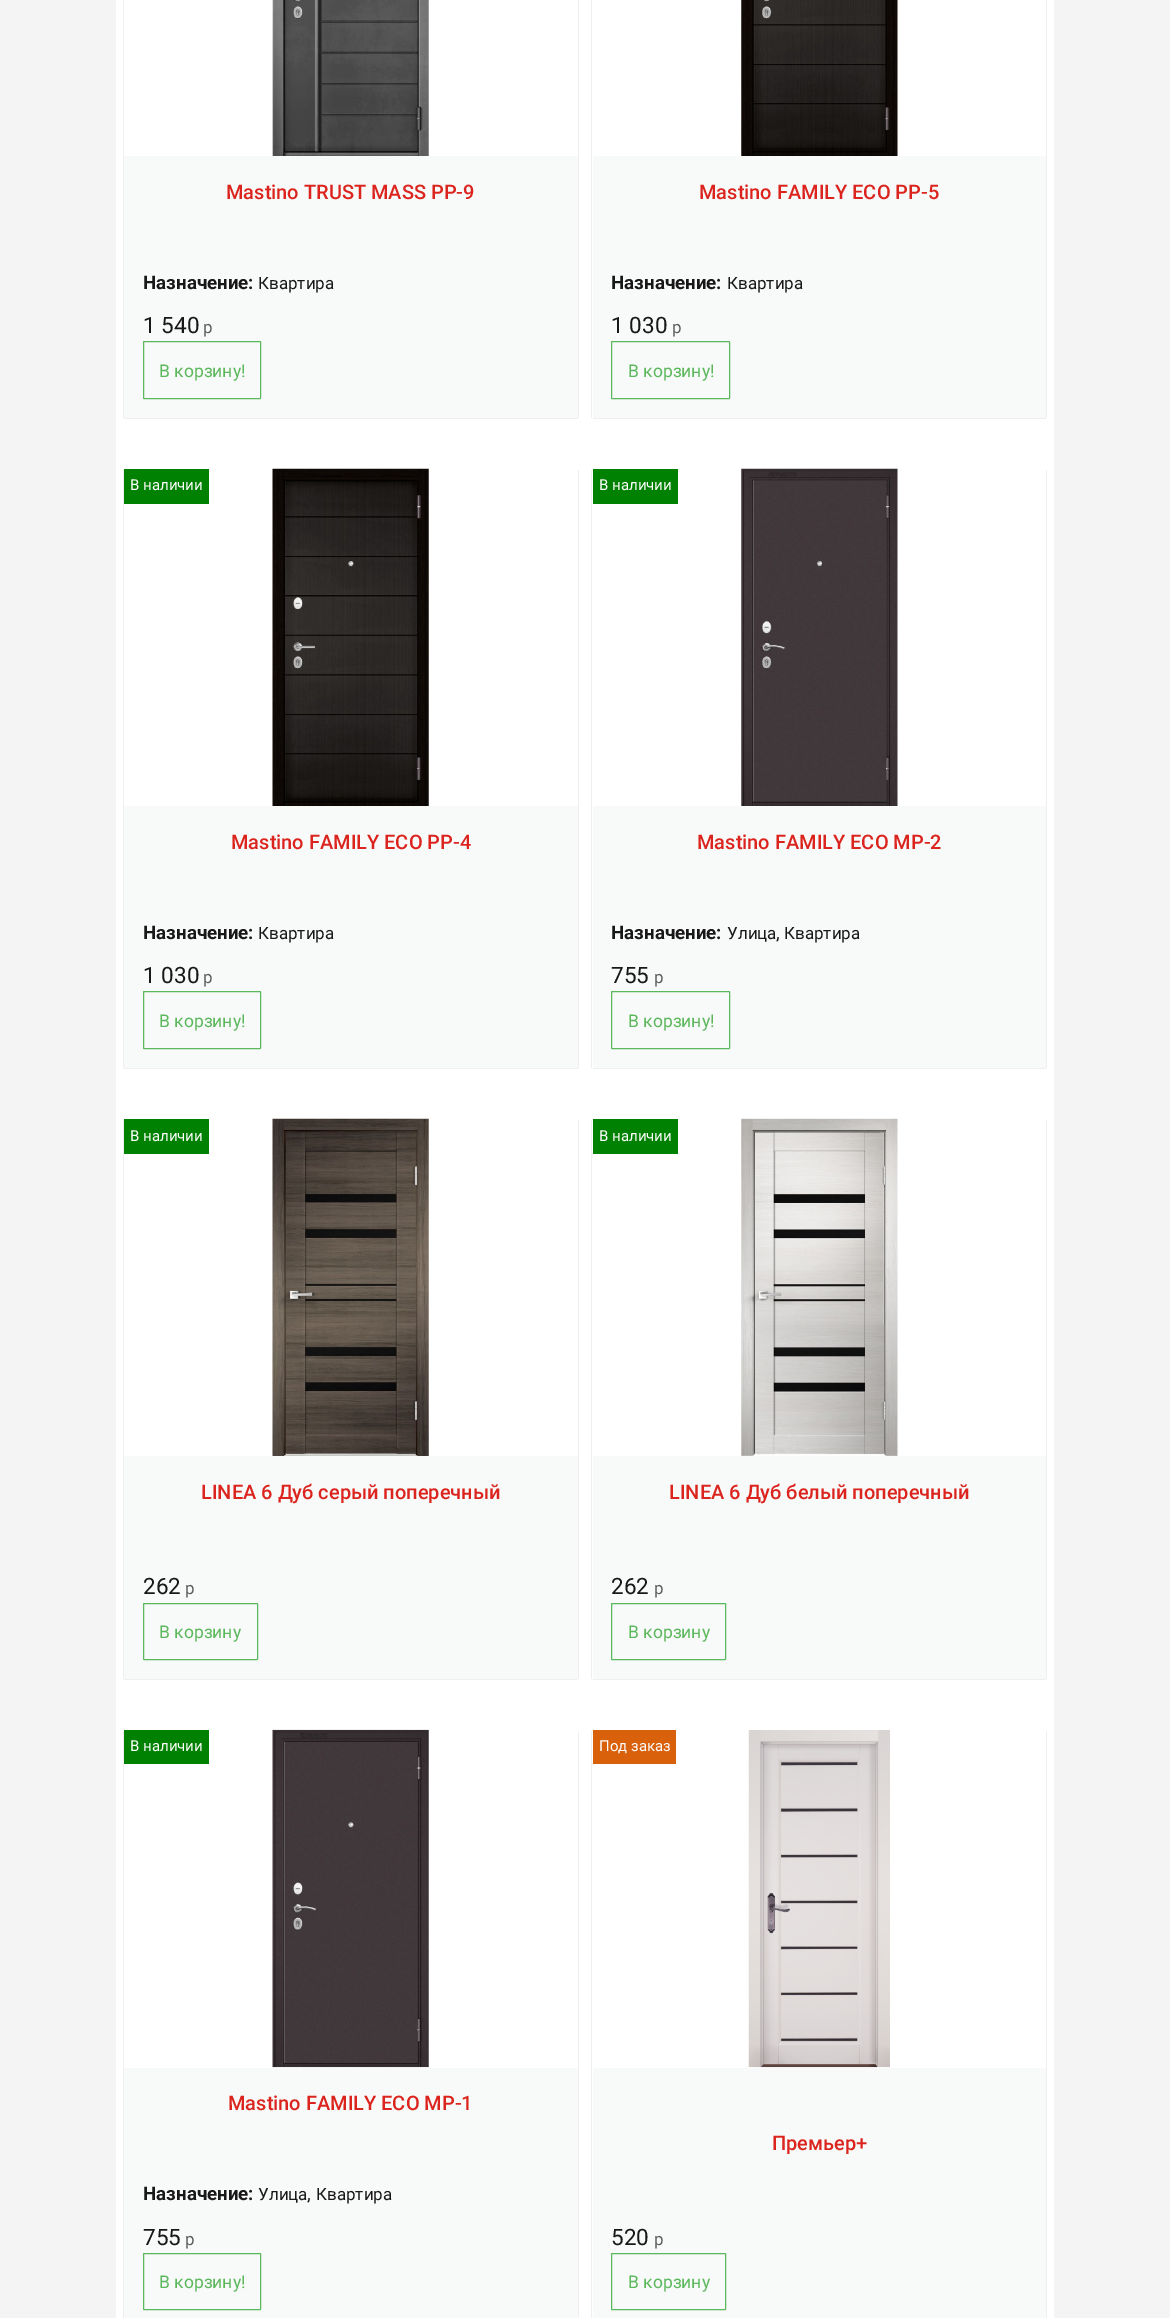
%!PS
<< /PageSize [1170 2318] >> setpagedevice
/rgb { dup -16 bitshift 255 div exch dup -8 bitshift 255 and 255 div exch 255 and 255 div setrgbcolor } def
/font { [ exch dup neg 0 0 3 -1 roll 0 0 ] selectfont } def
/text { moveto show } def
/roundrect { 5 dict begin { /r /h /w /y /x } { exch def } forall
  x r add y moveto x w add y 2 copy h add r arct x w add y h add x 1 index r arct
  x y h add x y r arct x y 2 copy exch w add exch r arct closepath end } def
/picture { 5 dict begin { /h /w /y /x /name } { exch def } forall
  gsave x y translate w h scale
  w h 8 [w 0 0 h 0 0] name (r) file false 3 colorimage grestore end } def
0 2318 translate 1 -1 scale
4 setmiterlimit
/s1 { /Roboto-Medium 20 font 16#DC241E rgb } def
/s2 { /Roboto-Bold 18.75 font 16#181818 rgb } def
/s3 { /Roboto-Regular 17 font 16#181818 rgb } def
/s4 { /Roboto-Regular 22.5 font 16#181818 rgb } def
/s5 { /Roboto-Regular 17 font 16#5B5C5C rgb } def
/s6 { /Roboto-Regular 17.5 font 16#5CB85C rgb } def
/s7 { /Roboto-Regular 15 font 16#FFFFFF rgb } def
/s8 { /Roboto-Regular 18.75 font 16#181818 rgb } def
16#F4F4F4 rgb
0 0 1170 2318 rectfill
16#FFFFFF rgb
116 0 938 2318 rectfill
16#EFEFEF rgb
578 0 1 418 rectfill
124 418 454 1 rectfill
123 0 1 418 rectfill
(pic1.raw) 272 0 157 156 picture
16#F8F9F9 rgb
124 156 454 262 rectfill
s1
(Mastino TRUST MASS PP-9) 226 199 text
s2
(Назначение:) 143 289 text
s3
(Квартира) 258 289 text
s4
(1 540) 143 333 text
s5
(р) 203 333 text
16#5CB85C rgb
143.5 341.5 117 57 0.5 roundrect stroke
s6
(В корзину!) 159 377 text
16#EFEFEF rgb
1046 0 1 418 rectfill
593 418 453 1 rectfill
591 0 1 418 rectfill
(pic2.raw) 741 0 157 156 picture
16#F8F9F9 rgb
593 156 453 262 rectfill
s1
(Mastino FAMILY ECO PP-5) 699 199 text
s2
(Назначение:) 611 289 text
s3
(Квартира) 727 289 text
s4
(1 030) 611 333 text
s5
(р) 672 333 text
16#5CB85C rgb
611.5 341.5 118 57 0.5 roundrect stroke
s6
(В корзину!) 628 377 text
16#EFEFEF rgb
578 470 1 598 rectfill
124 1068 454 1 rectfill
123 470 1 598 rectfill
16#018101 rgb
124 469 85 35 rectfill
s7
(В наличии) 130 490 text
(pic3.raw) 272 468 157 338 picture
16#F8F9F9 rgb
124 806 454 262 rectfill
s1
(Mastino FAMILY ECO PP-4) 231 849 text
s2
(Назначение:) 143 939 text
s3
(Квартира) 258 939 text
s4
(1 030) 143 983 text
s5
(р) 203 983 text
16#5CB85C rgb
143.5 991.5 117 57 0.5 roundrect stroke
s6
(В корзину!) 159 1027 text
16#EFEFEF rgb
1046 470 1 598 rectfill
593 1068 453 1 rectfill
591 470 1 598 rectfill
16#018101 rgb
593 469 85 35 rectfill
s7
(В наличии) 599 490 text
(pic4.raw) 741 468 157 338 picture
16#F8F9F9 rgb
593 806 453 262 rectfill
s1
(Mastino FAMILY ECO MP-2) 697 849 text
s2
(Назначение:) 611 939 text
s3
(Улица) 727 939 text
s8
(,) 776 939 text
s3
(Квартира) 784 939 text
s4
(755) 611 983 text
s5
(р) 654 983 text
16#5CB85C rgb
611.5 991.5 118 57 0.5 roundrect stroke
s6
(В корзину!) 628 1027 text
16#EFEFEF rgb
578 1120 1 559 rectfill
124 1679 454 1 rectfill
123 1120 1 559 rectfill
16#018101 rgb
124 1119 85 35 rectfill
s7
(В наличии) 130 1141 text
(pic5.raw) 272 1118 157 338 picture
16#F8F9F9 rgb
124 1456 454 223 rectfill
s1
(LINEA 6 Дуб серый поперечный) 201 1499 text
s4
(262) 143 1594 text
s5
(р) 185 1594 text
16#5CB85C rgb
143.5 1603.5 114 56 0.5 roundrect stroke
s6
(В корзину) 159 1638 text
16#EFEFEF rgb
1046 1120 1 559 rectfill
593 1679 453 1 rectfill
591 1120 1 559 rectfill
16#018101 rgb
593 1119 85 35 rectfill
s7
(В наличии) 599 1141 text
(pic6.raw) 741 1118 157 338 picture
16#F8F9F9 rgb
593 1456 453 223 rectfill
s1
(LINEA 6 Дуб белый поперечный) 669 1499 text
s4
(262) 611 1594 text
s5
(р) 654 1594 text
16#5CB85C rgb
611.5 1603.5 114 56 0.5 roundrect stroke
s6
(В корзину) 628 1638 text
16#EFEFEF rgb
578 1731 1 587 rectfill
123 1731 1 587 rectfill
16#018101 rgb
124 1730 85 34 rectfill
s7
(В наличии) 130 1751 text
(pic7.raw) 272 1729 157 339 picture
16#F8F9F9 rgb
124 2068 454 250 rectfill
s1
(Mastino FAMILY ECO MP-1) 228 2110 text
s2
(Назначение:) 143 2200 text
s3
(Улица) 258 2200 text
s8
(,) 307 2200 text
s3
(Квартира) 316 2200 text
s4
(755) 143 2245 text
s5
(р) 185 2245 text
16#5CB85C rgb
143.5 2253.5 117 56 0.5 roundrect stroke
s6
(В корзину!) 159 2288 text
16#EFEFEF rgb
1046 1731 1 587 rectfill
591 1731 1 587 rectfill
16#D9610C rgb
593 1730 83 34 rectfill
s7
(Под заказ) 599 1751 text
(pic8.raw) 748 1730 142 338 picture
16#F8F9F9 rgb
593 2068 453 250 rectfill
s1
(Премьер+) 772 2150 text
s4
(520) 611 2245 text
s5
(р) 654 2245 text
16#5CB85C rgb
611.5 2253.5 114 56 0.5 roundrect stroke
s6
(В корзину) 628 2288 text
showpage
